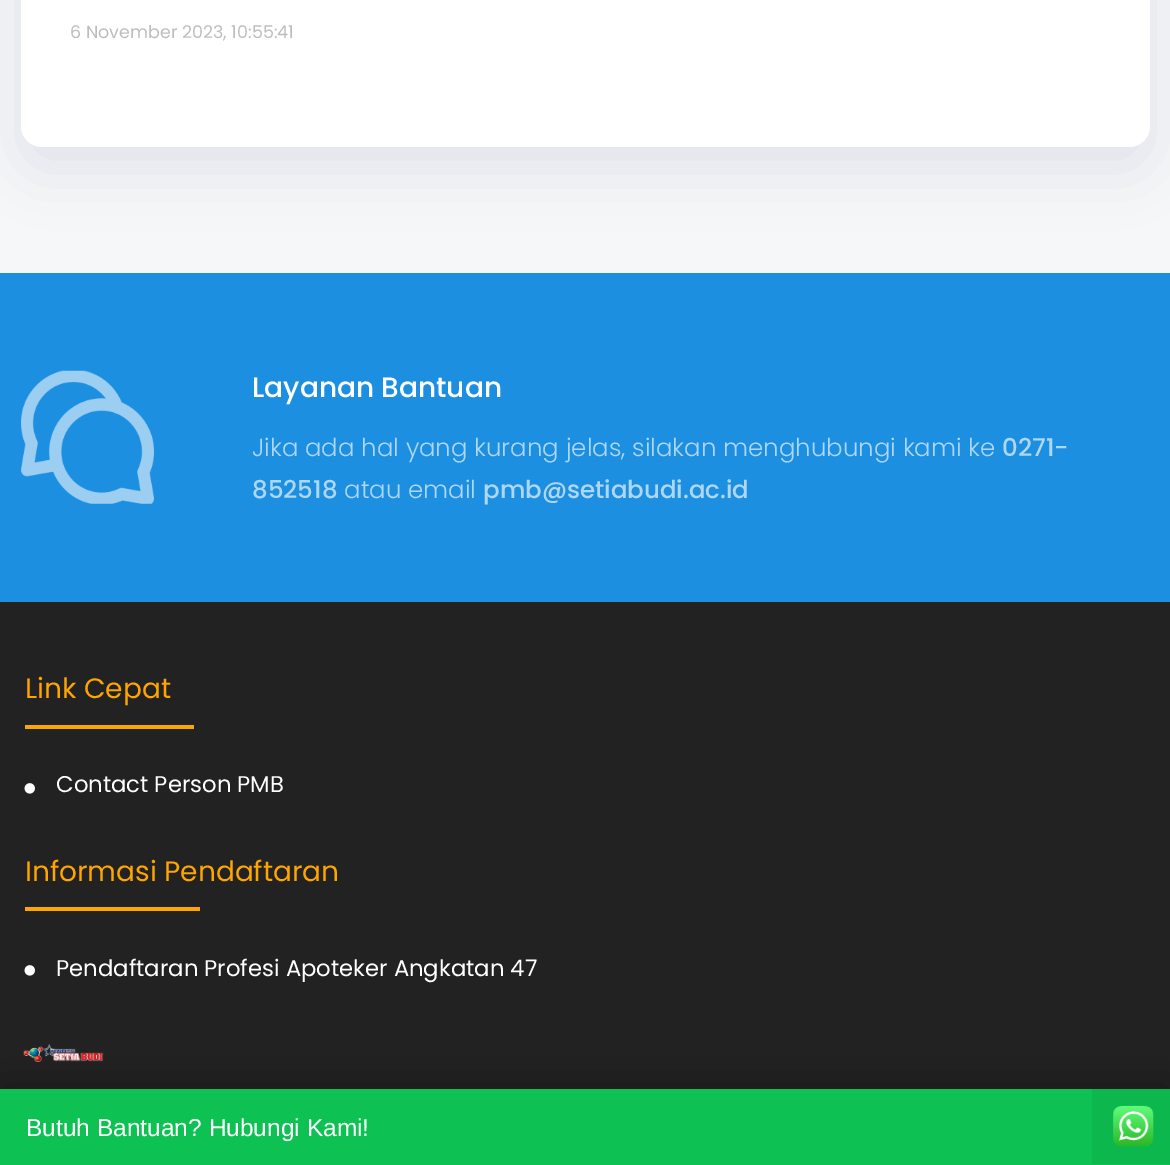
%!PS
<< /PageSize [1170 1165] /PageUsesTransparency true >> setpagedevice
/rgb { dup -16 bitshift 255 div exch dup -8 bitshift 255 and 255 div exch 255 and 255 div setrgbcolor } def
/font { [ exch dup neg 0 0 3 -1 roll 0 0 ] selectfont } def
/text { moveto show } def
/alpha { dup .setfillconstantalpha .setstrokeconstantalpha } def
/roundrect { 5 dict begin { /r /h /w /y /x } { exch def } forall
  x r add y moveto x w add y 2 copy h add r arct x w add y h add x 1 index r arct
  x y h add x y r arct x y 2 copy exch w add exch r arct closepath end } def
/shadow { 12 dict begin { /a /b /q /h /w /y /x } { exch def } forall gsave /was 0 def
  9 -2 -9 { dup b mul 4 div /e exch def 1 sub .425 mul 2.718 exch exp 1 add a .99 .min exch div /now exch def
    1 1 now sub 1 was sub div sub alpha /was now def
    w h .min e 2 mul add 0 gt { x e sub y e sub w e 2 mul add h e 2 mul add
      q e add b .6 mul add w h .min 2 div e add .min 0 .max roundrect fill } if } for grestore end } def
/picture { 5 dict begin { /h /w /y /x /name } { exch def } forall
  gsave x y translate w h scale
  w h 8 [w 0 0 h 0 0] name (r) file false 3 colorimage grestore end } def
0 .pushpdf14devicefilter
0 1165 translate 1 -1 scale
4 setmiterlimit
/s1 { /Poppins-Regular 17.5 font 16#BDBDBD rgb } def
/s2 { /Poppins-Medium 28 font 16#FFFFFF rgb } def
/s3 { /Poppins-Light 24.5 font 16#AED7F4 rgb } def
/s4 { /Poppins-Medium 24.5 font 16#AED7F4 rgb } def
/s5 { /Poppins-Regular 28 font 16#FFA500 rgb } def
/s6 { /Poppins-Regular 22.75 font 16#FFFFFF rgb } def
/s7 { /LiberationSans-Regular 24.5 font 16#FFFFFF rgb } def
16#F6F7F8 rgb
0 0 1170 1165 rectfill
16#0B095F rgb
21 -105 1129 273 21 28 0.08 shadow
16#FFFFFF rgb
21 -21 1129 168 21 roundrect fill
s1
(6 November 2023, 10:55:41) 70 38 text
16#1D8FE1 rgb
0 273 1170 329 rectfill
(pic1.raw) 21 370 133 134 picture
s2
(Layanan Bantuan) 252 397 text
s3
(Jika ada hal yang kurang jelas, silakan menghubungi kami ke) 252 456 text
s4
(0271-) 1002 456 text
(852518) 252 498 text
s3
(atau email) 344 498 text
s4
(pmb@setiabudi.ac.id) 483 498 text
16#222222 rgb
0 602 1170 487 rectfill
s5
(Link Cepat) 25 698 text
25 725 169 4 rectfill
(pic2.raw) 24 783 11 11 picture
s6
(Contact Person PMB) 56 792 text
s5
(Informasi Pendaftaran) 25 881 text
25 907 175 4 rectfill
(pic2.raw) 24 965 11 11 picture
s6
(Pendaftaran Profesi Apoteker Angkatan 47) 56 976 text
(pic3.raw) 23 1044 81 18 picture
16#000000 rgb
0 1089 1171 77 0 26 0.3 shadow
16#0DC152 rgb
0 1089 1170 76 rectfill
s7
(Butuh Bantuan? Hubungi Kami!) 26 1136 text
16#0CB74E rgb
1092 1089 78 75 rectfill
(pic4.raw) 1113 1105 41 42 picture
.poppdf14devicefilter showpage
